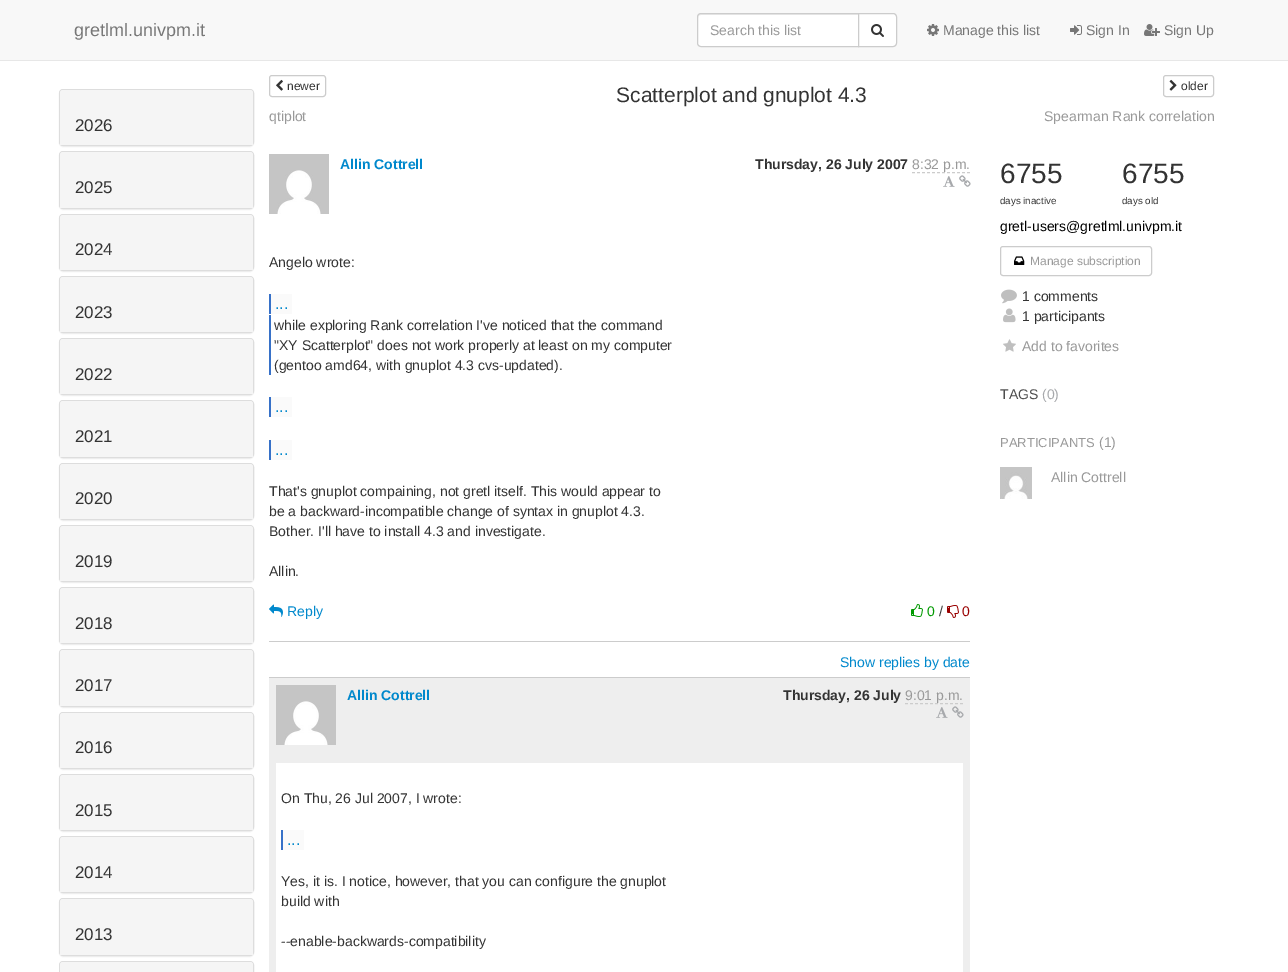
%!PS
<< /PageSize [1288 972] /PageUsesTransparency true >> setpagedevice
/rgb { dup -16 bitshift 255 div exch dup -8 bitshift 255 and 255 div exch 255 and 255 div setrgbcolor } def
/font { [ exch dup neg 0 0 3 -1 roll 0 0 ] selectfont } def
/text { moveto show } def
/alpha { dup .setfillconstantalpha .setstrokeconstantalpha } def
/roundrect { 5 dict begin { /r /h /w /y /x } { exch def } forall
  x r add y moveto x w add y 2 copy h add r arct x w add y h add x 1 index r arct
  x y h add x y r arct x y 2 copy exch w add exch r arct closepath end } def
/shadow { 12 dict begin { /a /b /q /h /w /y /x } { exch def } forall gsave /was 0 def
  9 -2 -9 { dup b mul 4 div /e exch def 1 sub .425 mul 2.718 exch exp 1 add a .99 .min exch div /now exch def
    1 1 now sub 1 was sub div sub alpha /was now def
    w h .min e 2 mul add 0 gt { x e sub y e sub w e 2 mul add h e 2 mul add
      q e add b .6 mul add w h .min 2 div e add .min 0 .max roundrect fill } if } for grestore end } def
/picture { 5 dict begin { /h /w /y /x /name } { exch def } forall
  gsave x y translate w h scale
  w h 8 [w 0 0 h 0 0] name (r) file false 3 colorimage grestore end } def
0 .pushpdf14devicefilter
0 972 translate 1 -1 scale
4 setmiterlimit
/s1 { /LiberationSans-Regular 18 font 16#777777 rgb } def
/s2 { /LiberationSans-Regular 14 font 16#999999 rgb } def
/s3 { /LiberationSans-Regular 14 font 16#777777 rgb } def
/s4 { /LiberationSans-Regular 17 font 16#333333 rgb } def
/s5 { /LiberationSans-Regular 12 font 16#333333 rgb } def
/s6 { /LiberationSans-Regular 21 font 16#333333 rgb } def
/s7 { /LiberationSans-Bold 14 font 16#0088CC rgb } def
/s8 { /LiberationSans-Bold 14 font 16#333333 rgb } def
/s9 { /LiberationSans-Regular 14 font 16#333333 rgb } def
/s10 { /LiberationSans-Regular 16 font 16#0088CC rgb } def
/s11 { /LiberationSans-Regular 14 font 16#0088CC rgb } def
/s12 { /LiberationSans-Regular 14 font 16#009900 rgb } def
/s13 { /LiberationSans-Regular 14 font 16#990000 rgb } def
/s14 { /LiberationSans-Regular 28 font 16#333333 rgb } def
/s15 { /LiberationSans-Regular 9.75 font 16#333333 rgb } def
/s16 { /LiberationSans-Regular 14 font 16#000000 rgb } def
/s17 { /LiberationSans-Regular 12 font 16#999999 rgb } def
/s18 { /LiberationSans-Regular 14 font 16#4D4D4D rgb } def
/s19 { /LiberationSans-Regular 14 font 16#A7A9AC rgb } def
/s20 { /LiberationSans-Regular 13 font 16#999999 rgb } def
16#FFFFFF rgb
0 0 1288 972 rectfill
16#F8F8F8 rgb
0 0 1288 60 rectfill
16#E7E7E7 rgb
0 60 1288 1 rectfill
s1
(gretlml.univpm.it) 74 36 text
16#FFFFFF rgb
701 13 moveto 859 13 lineto 859 47 lineto 701 47 lineto 699 47 697 45 697 43 curveto 697 17 lineto 697 15 699 13 701 13 curveto closepath fill
16#ECECEC rgb
701 15 moveto 858 15 lineto 858 14 lineto 700 14 lineto 698 14 698 16 698 18 curveto 698 16 699 15 701 15 curveto closepath fill
16#CCCCCC rgb
701 13.5 moveto 858.5 13.5 lineto 858.5 46.5 lineto 701 46.5 lineto 699 46.5 697.5 45 697.5 43 curveto 697.5 17 lineto 697.5 15 699 13.5 701 13.5 curveto closepath stroke
s2
(Search this list) 710 35 text
16#FFFFFF rgb
858.5 13.5 moveto 893 13.5 lineto 895 13.5 896.5 15 896.5 17 curveto 896.5 43 lineto 896.5 45 895 46.5 893 46.5 curveto 858.5 46.5 lineto closepath gsave fill grestore
16#CCCCCC rgb
stroke
(pic1.raw) 871 24 13 13 picture
(pic2.raw) 927 24 12 12 picture
s3
(Manage this list) 943 35 text
(pic3.raw) 1070 25 12 10 picture
(Sign In) 1086 35 text
(pic4.raw) 1144 24 16 12 picture
(Sign Up) 1164 35 text
16#000000 rgb
59 90 195 57 4 0.5 0.05 shadow
16#DDDDDD rgb
59.5 89.5 194 56 3.5 roundrect stroke
16#F5F5F5 rgb
63 90 moveto 250 90 lineto 251.5 90 253 91.5 253 93 curveto 253 145 lineto 60 145 lineto 60 93 lineto 60 91.5 61.5 90 63 90 curveto closepath fill
s4
(2026) 75 131 text
16#000000 rgb
59 152 195 58 4 0.5 0.05 shadow
16#DDDDDD rgb
59.5 151.5 194 57 3.5 roundrect stroke
16#F5F5F5 rgb
63 152 moveto 250 152 lineto 251.5 152 253 153.5 253 155 curveto 253 208 lineto 60 208 lineto 60 155 lineto 60 153.5 61.5 152 63 152 curveto closepath fill
s4
(2025) 75 193 text
16#000000 rgb
59 215 195 57 4 0.5 0.05 shadow
16#DDDDDD rgb
59.5 214.5 194 56 3.5 roundrect stroke
16#F5F5F5 rgb
63 215 moveto 250 215 lineto 251.5 215 253 216.5 253 218 curveto 253 270 lineto 60 270 lineto 60 218 lineto 60 216.5 61.5 215 63 215 curveto closepath fill
s4
(2024) 75 255 text
16#000000 rgb
59 277 195 57 4 0.5 0.05 shadow
16#DDDDDD rgb
59.5 276.5 194 56 3.5 roundrect stroke
16#F5F5F5 rgb
63 277 moveto 250 277 lineto 251.5 277 253 278.5 253 280 curveto 253 332 lineto 60 332 lineto 60 280 lineto 60 278.5 61.5 277 63 277 curveto closepath fill
s4
(2023) 75 318 text
16#000000 rgb
59 339 195 57 4 0.5 0.05 shadow
16#DDDDDD rgb
59.5 338.5 194 56 3.5 roundrect stroke
16#F5F5F5 rgb
63 339 moveto 250 339 lineto 251.5 339 253 340.5 253 342 curveto 253 394 lineto 60 394 lineto 60 342 lineto 60 340.5 61.5 339 63 339 curveto closepath fill
s4
(2022) 75 380 text
16#000000 rgb
59 401 195 58 4 0.5 0.05 shadow
16#DDDDDD rgb
59.5 400.5 194 57 3.5 roundrect stroke
16#F5F5F5 rgb
63 401 moveto 250 401 lineto 251.5 401 253 402.5 253 404 curveto 253 457 lineto 60 457 lineto 60 404 lineto 60 402.5 61.5 401 63 401 curveto closepath fill
s4
(2021) 75 442 text
16#000000 rgb
59 464 195 57 4 0.5 0.05 shadow
16#DDDDDD rgb
59.5 463.5 194 56 3.5 roundrect stroke
16#F5F5F5 rgb
63 464 moveto 250 464 lineto 251.5 464 253 465.5 253 467 curveto 253 519 lineto 60 519 lineto 60 467 lineto 60 465.5 61.5 464 63 464 curveto closepath fill
s4
(2020) 75 504 text
16#000000 rgb
59 526 195 57 4 0.5 0.05 shadow
16#DDDDDD rgb
59.5 525.5 194 56 3.5 roundrect stroke
16#F5F5F5 rgb
63 526 moveto 250 526 lineto 251.5 526 253 527.5 253 529 curveto 253 581 lineto 60 581 lineto 60 529 lineto 60 527.5 61.5 526 63 526 curveto closepath fill
s4
(2019) 75 567 text
16#000000 rgb
59 588 195 57 4 0.5 0.05 shadow
16#DDDDDD rgb
59.5 587.5 194 56 3.5 roundrect stroke
16#F5F5F5 rgb
63 588 moveto 250 588 lineto 251.5 588 253 589.5 253 591 curveto 253 643 lineto 60 643 lineto 60 591 lineto 60 589.5 61.5 588 63 588 curveto closepath fill
s4
(2018) 75 629 text
16#000000 rgb
59 650 195 58 4 0.5 0.05 shadow
16#DDDDDD rgb
59.5 649.5 194 57 3.5 roundrect stroke
16#F5F5F5 rgb
63 650 moveto 250 650 lineto 251.5 650 253 651.5 253 653 curveto 253 706 lineto 60 706 lineto 60 653 lineto 60 651.5 61.5 650 63 650 curveto closepath fill
s4
(2017) 75 691 text
16#000000 rgb
59 713 195 57 4 0.5 0.05 shadow
16#DDDDDD rgb
59.5 712.5 194 56 3.5 roundrect stroke
16#F5F5F5 rgb
63 713 moveto 250 713 lineto 251.5 713 253 714.5 253 716 curveto 253 768 lineto 60 768 lineto 60 716 lineto 60 714.5 61.5 713 63 713 curveto closepath fill
s4
(2016) 75 753 text
16#000000 rgb
59 775 195 57 4 0.5 0.05 shadow
16#DDDDDD rgb
59.5 774.5 194 56 3.5 roundrect stroke
16#F5F5F5 rgb
63 775 moveto 250 775 lineto 251.5 775 253 776.5 253 778 curveto 253 830 lineto 60 830 lineto 60 778 lineto 60 776.5 61.5 775 63 775 curveto closepath fill
s4
(2015) 75 816 text
16#000000 rgb
59 837 195 57 4 0.5 0.05 shadow
16#DDDDDD rgb
59.5 836.5 194 56 3.5 roundrect stroke
16#F5F5F5 rgb
63 837 moveto 250 837 lineto 251.5 837 253 838.5 253 840 curveto 253 892 lineto 60 892 lineto 60 840 lineto 60 838.5 61.5 837 63 837 curveto closepath fill
s4
(2014) 75 878 text
16#000000 rgb
59 899 195 58 4 0.5 0.05 shadow
16#DDDDDD rgb
59.5 898.5 194 57 3.5 roundrect stroke
16#F5F5F5 rgb
63 899 moveto 250 899 lineto 251.5 899 253 900.5 253 902 curveto 253 955 lineto 60 955 lineto 60 902 lineto 60 900.5 61.5 899 63 899 curveto closepath fill
s4
(2013) 75 940 text
16#DDDDDD rgb
59.5 961.5 194 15 3.5 roundrect stroke
16#F5F5F5 rgb
63 962 moveto 250 962 lineto 251.5 962 253 963.5 253 965 curveto 253 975 lineto 60 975 lineto 60 965 lineto 60 963.5 61.5 962 63 962 curveto closepath fill
16#CCCCCC rgb
269.5 75.5 56 21 2.5 roundrect stroke
(pic5.raw) 276 79 7 12 picture
s5
(newer) 287 90 text
s6
(Scatterplot and gnuplot 4.3) 616 102 text
16#CCCCCC rgb
1163.5 75.5 50 21 2.5 roundrect stroke
(pic6.raw) 1169 79 8 12 picture
s5
(older) 1181 90 text
s2
(qtiplot) 269 121 text
(Spearman Rank correlation) 1044 121 text
(pic7.raw) 269 154 60 60 picture
s7
(Allin Cottrell) 340 169 text
s8
(Thursday, 26 July 2007) 755 169 text
s2
(8:32 p.m.) 912 169 text
16#CCCCCC rgb
[3 2] 0 setdash
912 172.5 moveto 970 172.5 lineto stroke
(pic8.raw) 943 176 12 11 picture
(pic9.raw) 959 175 12 12 picture
s9
(Angelo wrote:) 269 267 text
16#FAFAFA rgb
271 294 21 20 rectfill
s10
(...) 275 309 text
16#3771C8 rgb
269 294 2 20 rectfill
269 315 2 60 rectfill
s9
(while exploring Rank correlation I've noticed that the command) 274 330 text
("XY Scatterplot" does not work properly at least on my computer) 274 350 text
(\(gentoo amd64, with gnuplot 4.3 cvs-updated\).) 274 370 text
16#FAFAFA rgb
271 397 21 20 rectfill
s10
(...) 275 412 text
16#3771C8 rgb
269 397 2 20 rectfill
16#FAFAFA rgb
271 440 21 20 rectfill
s10
(...) 275 455 text
16#3771C8 rgb
269 440 2 20 rectfill
s9
(That's gnuplot compaining, not gretl itself. This would appear to) 269 496 text
(be a backward-incompatible change of syntax in gnuplot 4.3.) 269 516 text
(Bother. I'll have to install 4.3 and investigate.) 269 536 text
(Allin.) 269 576 text
16#CCCCCC rgb
269 641 701 1 rectfill
(pic10.raw) 269 604 14 13 picture
s11
(Reply) 287 616 text
(pic11.raw) 911 604 12 13 picture
s12
(0) 927 616 text
s9
(/) 939 616 text
(pic12.raw) 947 605 12 13 picture
s13
(0) 962 616 text
s11
(Show replies by date) 840 667 text
16#EEEEEE rgb
269 678 701 294 rectfill
16#CCCCCC rgb
269 677 701 1 rectfill
(pic7.raw) 276 685 60 60 picture
s7
(Allin Cottrell) 347 700 text
s8
(Thursday, 26 July) 783 700 text
s2
(9:01 p.m.) 905 700 text
16#CCCCCC rgb
905 703.5 moveto 963 703.5 lineto stroke
(pic13.raw) 936 707 12 11 picture
(pic14.raw) 952 706 12 12 picture
16#FFFFFF rgb
276 763 687 209 rectfill
s9
(On Thu, 26 Jul 2007, I wrote:) 281 803 text
16#FAFAFA rgb
283 830 21 20 rectfill
s10
(...) 287 845 text
16#3771C8 rgb
281 830 2 20 rectfill
s9
(Yes, it is. I notice, however, that you can configure the gnuplot) 281 886 text
(build with) 281 906 text
(--enable-backwards-compatibility) 281 946 text
s14
(6755) 1000 183 text
s15
(days inactive) 1000 204 text
s14
(6755) 1122 183 text
s15
(days old) 1122 204 text
s16
(gretl-users@gretlml.univpm.it) 1000 231 text
16#CCCCCC rgb
[] 0 setdash
1000.5 246.5 151 29 2.5 roundrect stroke
(pic15.raw) 1014 256 11 9 picture
s17
(Manage subscription) 1030 265 text
(pic16.raw) 1001 289 16 15 picture
s9
(1 comments) 1022 301 text
(pic17.raw) 1003 308 13 15 picture
(1 participants) 1022 321 text
(pic18.raw) 1003 339 13 13 picture
s2
(Add to favorites) 1022 351 text
s18
(TAGS) 1000 399 text
s19
(\(0\)) 1042 399 text
s20
(PARTICIPANTS) 1000 447 text
s2
(\(1\)) 1099 447 text
(pic19.raw) 1000 467 32 32 picture
(Allin Cottrell) 1051 482 text
.poppdf14devicefilter showpage
